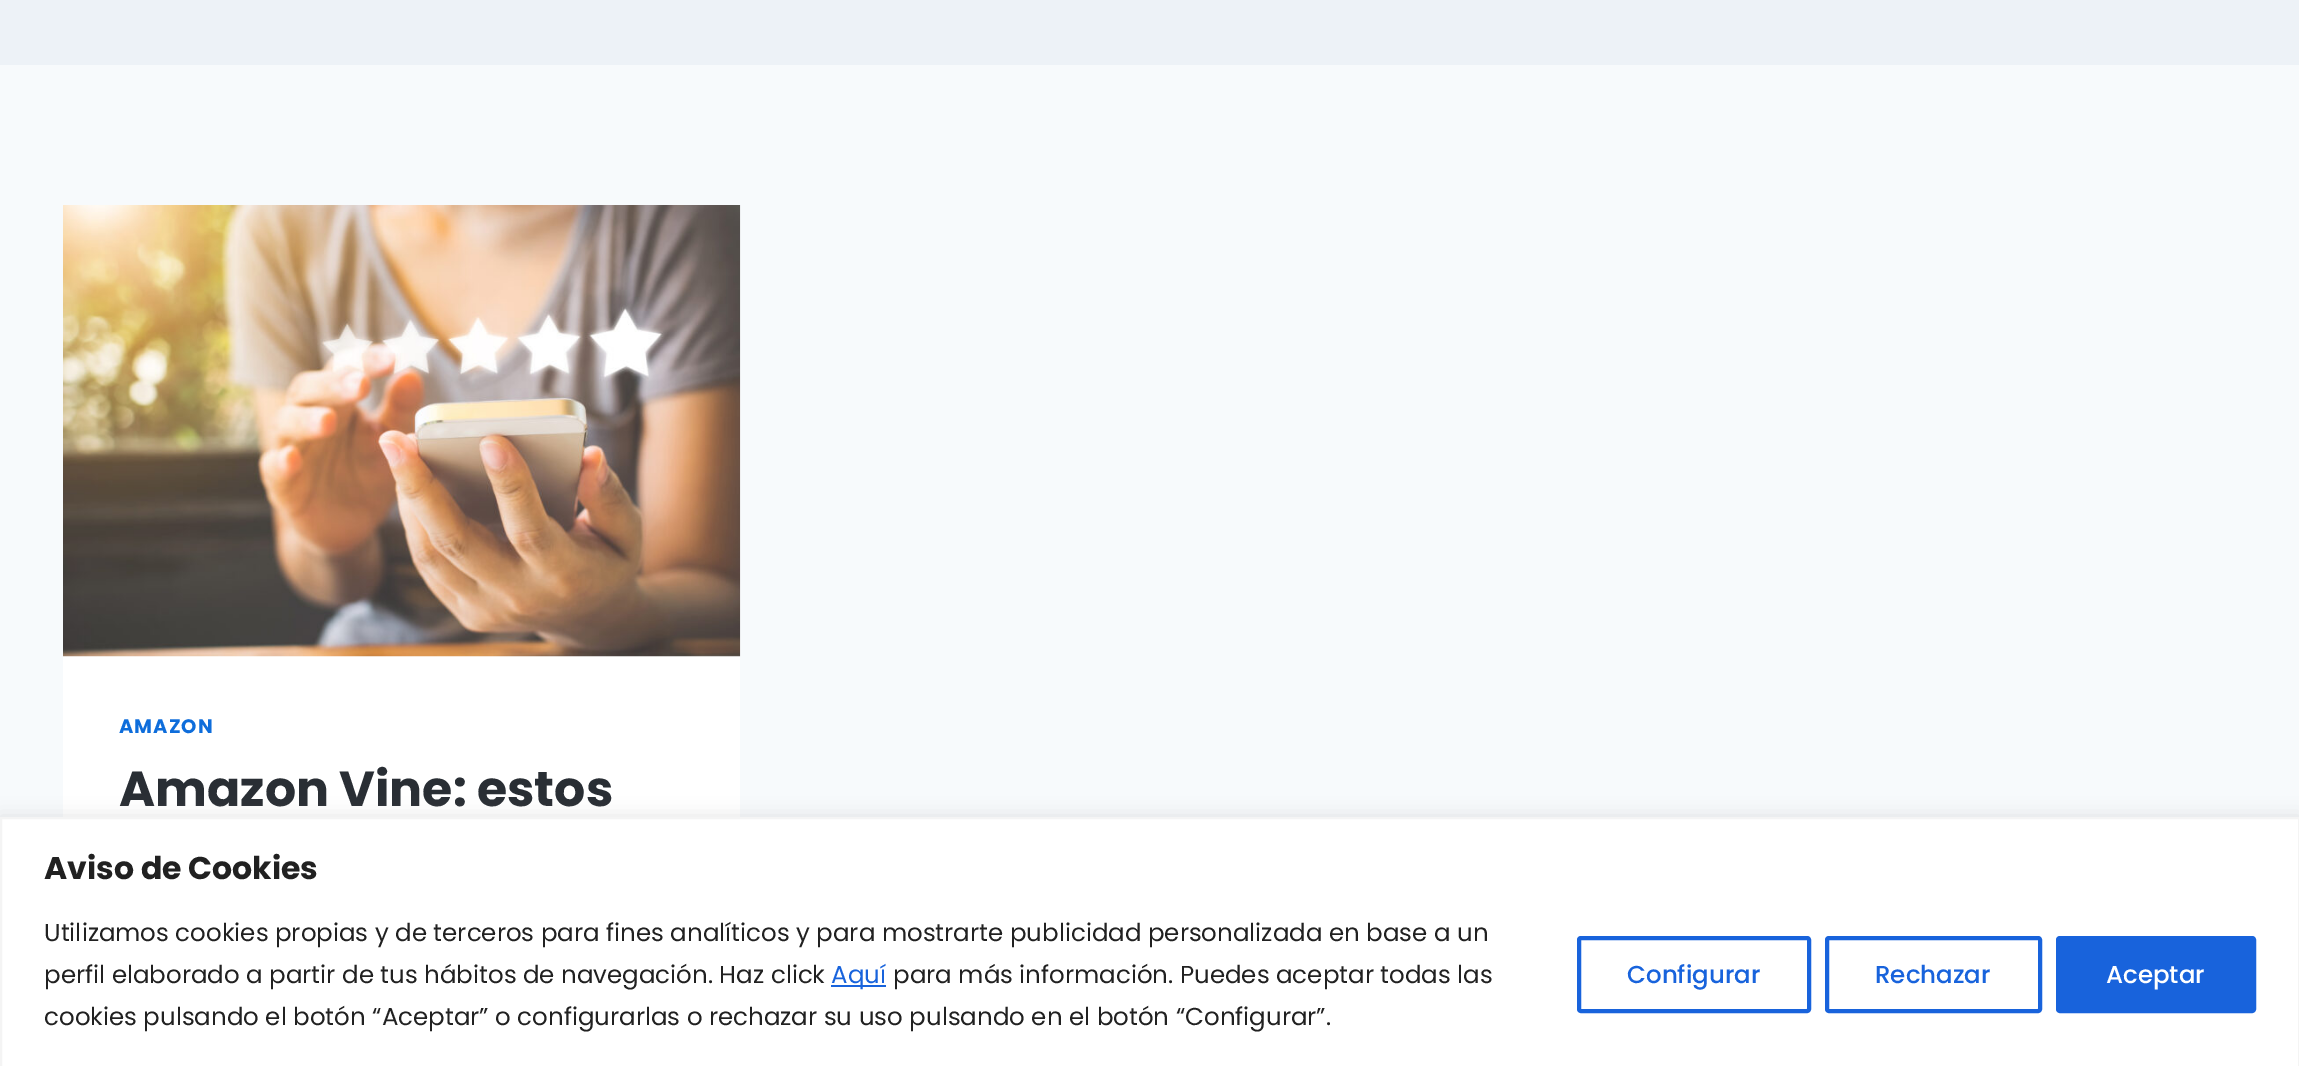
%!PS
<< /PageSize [2299 1066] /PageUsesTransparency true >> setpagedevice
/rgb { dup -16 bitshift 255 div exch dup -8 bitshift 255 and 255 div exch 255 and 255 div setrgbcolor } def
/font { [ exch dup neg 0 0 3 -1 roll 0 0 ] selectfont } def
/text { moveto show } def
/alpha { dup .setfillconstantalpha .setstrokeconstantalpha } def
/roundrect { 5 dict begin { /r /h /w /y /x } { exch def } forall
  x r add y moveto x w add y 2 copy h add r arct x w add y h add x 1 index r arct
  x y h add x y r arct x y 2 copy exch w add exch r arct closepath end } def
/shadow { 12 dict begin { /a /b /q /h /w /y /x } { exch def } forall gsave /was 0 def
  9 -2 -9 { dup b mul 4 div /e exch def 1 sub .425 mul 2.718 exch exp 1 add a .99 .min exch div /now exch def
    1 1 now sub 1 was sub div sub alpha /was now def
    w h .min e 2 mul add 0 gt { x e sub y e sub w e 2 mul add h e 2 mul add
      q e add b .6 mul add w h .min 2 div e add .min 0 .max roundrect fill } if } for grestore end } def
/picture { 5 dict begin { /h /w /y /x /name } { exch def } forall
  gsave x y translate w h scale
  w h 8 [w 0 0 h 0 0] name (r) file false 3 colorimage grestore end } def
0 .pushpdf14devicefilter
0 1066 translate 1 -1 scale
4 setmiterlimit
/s1 { /Poppins-Bold 49 font 16#292E34 rgb } def
/s2 { /Poppins-Bold 31.5 font 16#212121 rgb } def
/s3 { /Poppins-Regular 24.5 font 16#212121 rgb } def
/s4 { /Poppins-Regular 24.5 font 16#1863DC rgb } def
/s5 { /Poppins-Medium 24.5 font 16#1863DC rgb } def
/s6 { /Poppins-Medium 24.5 font 16#FFFFFF rgb } def
16#F7FAFC rgb
0 0 2299 1066 rectfill
16#EDF2F7 rgb
0 0 2299 65 rectfill
16#FFFFFF rgb
63 656 677 161 rectfill
(pic1.raw) 63 205 678 452 picture
/Poppins-Bold 19.5 font
16#0E6DDB rgb
119 733 moveto 1 0 (AMAZON) ashow
s1
(Amazon Vine: estos) 119 806 text
16#ACABAB rgb
0 816 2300 250 0 9 0.3 shadow
16#FFFFFF rgb
1 818 moveto 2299 818 lineto 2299 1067 lineto 1 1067 lineto closepath gsave fill grestore
16#F4F4F4 rgb
2 setlinewidth
stroke
s2
(Aviso de Cookies) 44 879 text
s3
(Utilizamos cookies propias y de terceros para fines analíticos y para mostrarte publicidad personalizada en base a un) 44 941 text
(perfil elaborado a partir de tus hábitos de navegación. Haz click) 44 983 text
16#1863DC rgb
831 985 55 2 rectfill
(Aquí) 831 983 text
s3
(para más información. Puedes aceptar todas las) 893 983 text
(cookies pulsando el botón “Aceptar” o configurarlas o rechazar su uso pulsando en el botón “Configurar”.) 44 1025 text
16#1863DC rgb
4 setlinewidth
1579 938 230 73 2 roundrect stroke
s5
(Configurar) 1627 983 text
1827 938 213 73 2 roundrect stroke
(Rechazar) 1875 983 text
2058 938 196 73 2 roundrect gsave fill grestore
stroke
s6
(Aceptar) 2106 983 text
.poppdf14devicefilter showpage
